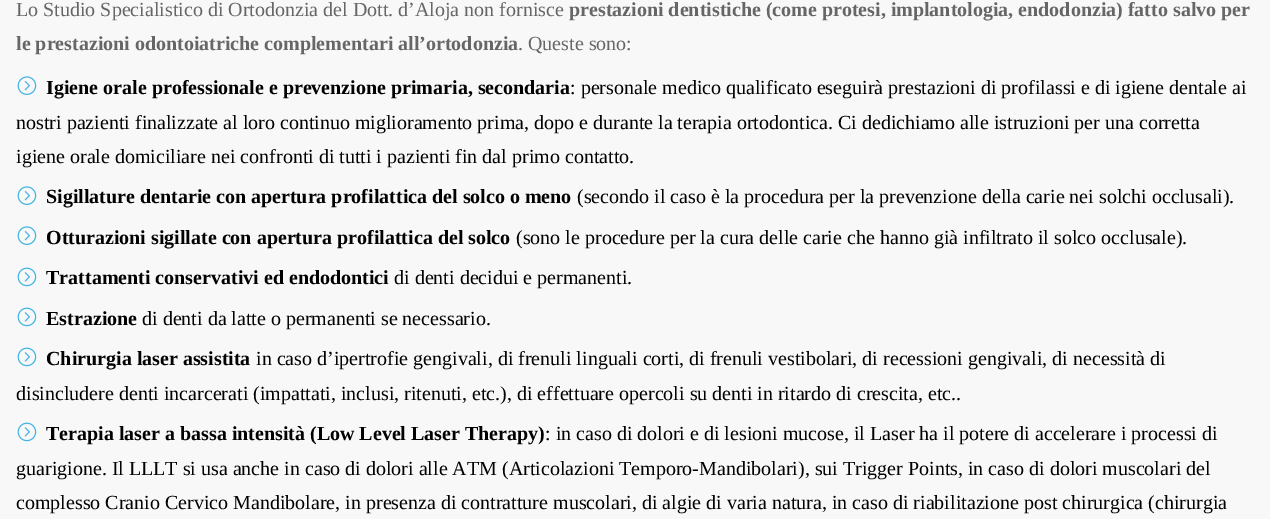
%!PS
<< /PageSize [1270 519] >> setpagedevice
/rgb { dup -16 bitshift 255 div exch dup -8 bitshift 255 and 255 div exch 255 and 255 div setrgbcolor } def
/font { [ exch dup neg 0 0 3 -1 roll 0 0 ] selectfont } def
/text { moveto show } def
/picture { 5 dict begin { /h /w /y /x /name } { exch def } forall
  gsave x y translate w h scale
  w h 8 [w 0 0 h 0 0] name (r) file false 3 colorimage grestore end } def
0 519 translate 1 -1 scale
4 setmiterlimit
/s1 { /LiberationSerif-Regular 20 font 16#666666 rgb } def
/s2 { /LiberationSerif-Bold 20 font 16#666666 rgb } def
/s3 { /LiberationSerif-Bold 20 font 16#000000 rgb } def
/s4 { /LiberationSerif-Regular 20 font 16#000000 rgb } def
16#F8F8F8 rgb
0 0 1270 519 rectfill
s1
(Lo Studio Specialistico di Ortodonzia del Dott. d’Aloja non fornisce) 16 16 text
s2
(prestazioni dentistiche \(come protesi, implantologia, endodonzia\) fatto salvo per) 569 16 text
(le prestazioni odontoiatriche complementari all’ortodonzia) 16 50 text
s1
(. Queste sono:) 518 50 text
(pic1.raw) 17 76 20 19 picture
s3
(Igiene orale professionale e prevenzione primaria, secondaria) 46 94 text
s4
(: personale medico qualificato eseguirà prestazioni di profilassi e di igiene dentale ai) 570 94 text
(nostri pazienti finalizzate al loro continuo miglioramento prima, dopo e durante la terapia ortodontica. Ci dedichiamo alle istruzioni per una corretta) 16 129 text
(igiene orale domiciliare nei confronti di tutti i pazienti fin dal primo contatto.) 16 163 text
(pic1.raw) 17 186 20 19 picture
s3
(Sigillature dentarie con apertura profilattica del solco o meno) 46 203 text
s4
(\(secondo il caso è la procedura per la prevenzione della carie nei solchi occlusali\).) 577 203 text
(pic1.raw) 17 226 20 19 picture
s3
(Otturazioni sigillate con apertura profilattica del solco) 46 244 text
s4
(\(sono le procedure per la cura delle carie che hanno già infiltrato il solco occlusale\).) 516 244 text
(pic2.raw) 17 267 20 20 picture
s3
(Trattamenti conservativi ed endodontici) 46 284 text
s4
(di denti decidui e permanenti.) 394 284 text
(pic2.raw) 17 307 20 20 picture
s3
(Estrazione) 46 325 text
s4
(di denti da latte o permanenti se necessario.) 142 325 text
(pic2.raw) 17 347 20 20 picture
s3
(Chirurgia laser assistita) 46 365 text
s4
(in caso d’ipertrofie gengivali, di frenuli linguali corti, di frenuli vestibolari, di recessioni gengivali, di necessità di) 256 365 text
(disincludere denti incarcerati \(impattati, inclusi, ritenuti, etc.\), di effettuare opercoli su denti in ritardo di crescita, etc..) 16 400 text
(pic2.raw) 17 422 20 20 picture
s3
(Terapia laser a bassa intensità \(Low Level Laser Therapy\)) 46 440 text
s4
(: in caso di dolori e di lesioni mucose, il Laser ha il potere di accelerare i processi di) 545 440 text
(guarigione. Il LLLT si usa anche in caso di dolori alle ATM \(Articolazioni Temporo-Mandibolari\), sui Trigger Points, in caso di dolori muscolari del) 16 475 text
(complesso Cranio Cervico Mandibolare, in presenza di contratture muscolari, di algie di varia natura, in caso di riabilitazione post chirurgica \(chirurgia) 16 509 text
showpage
